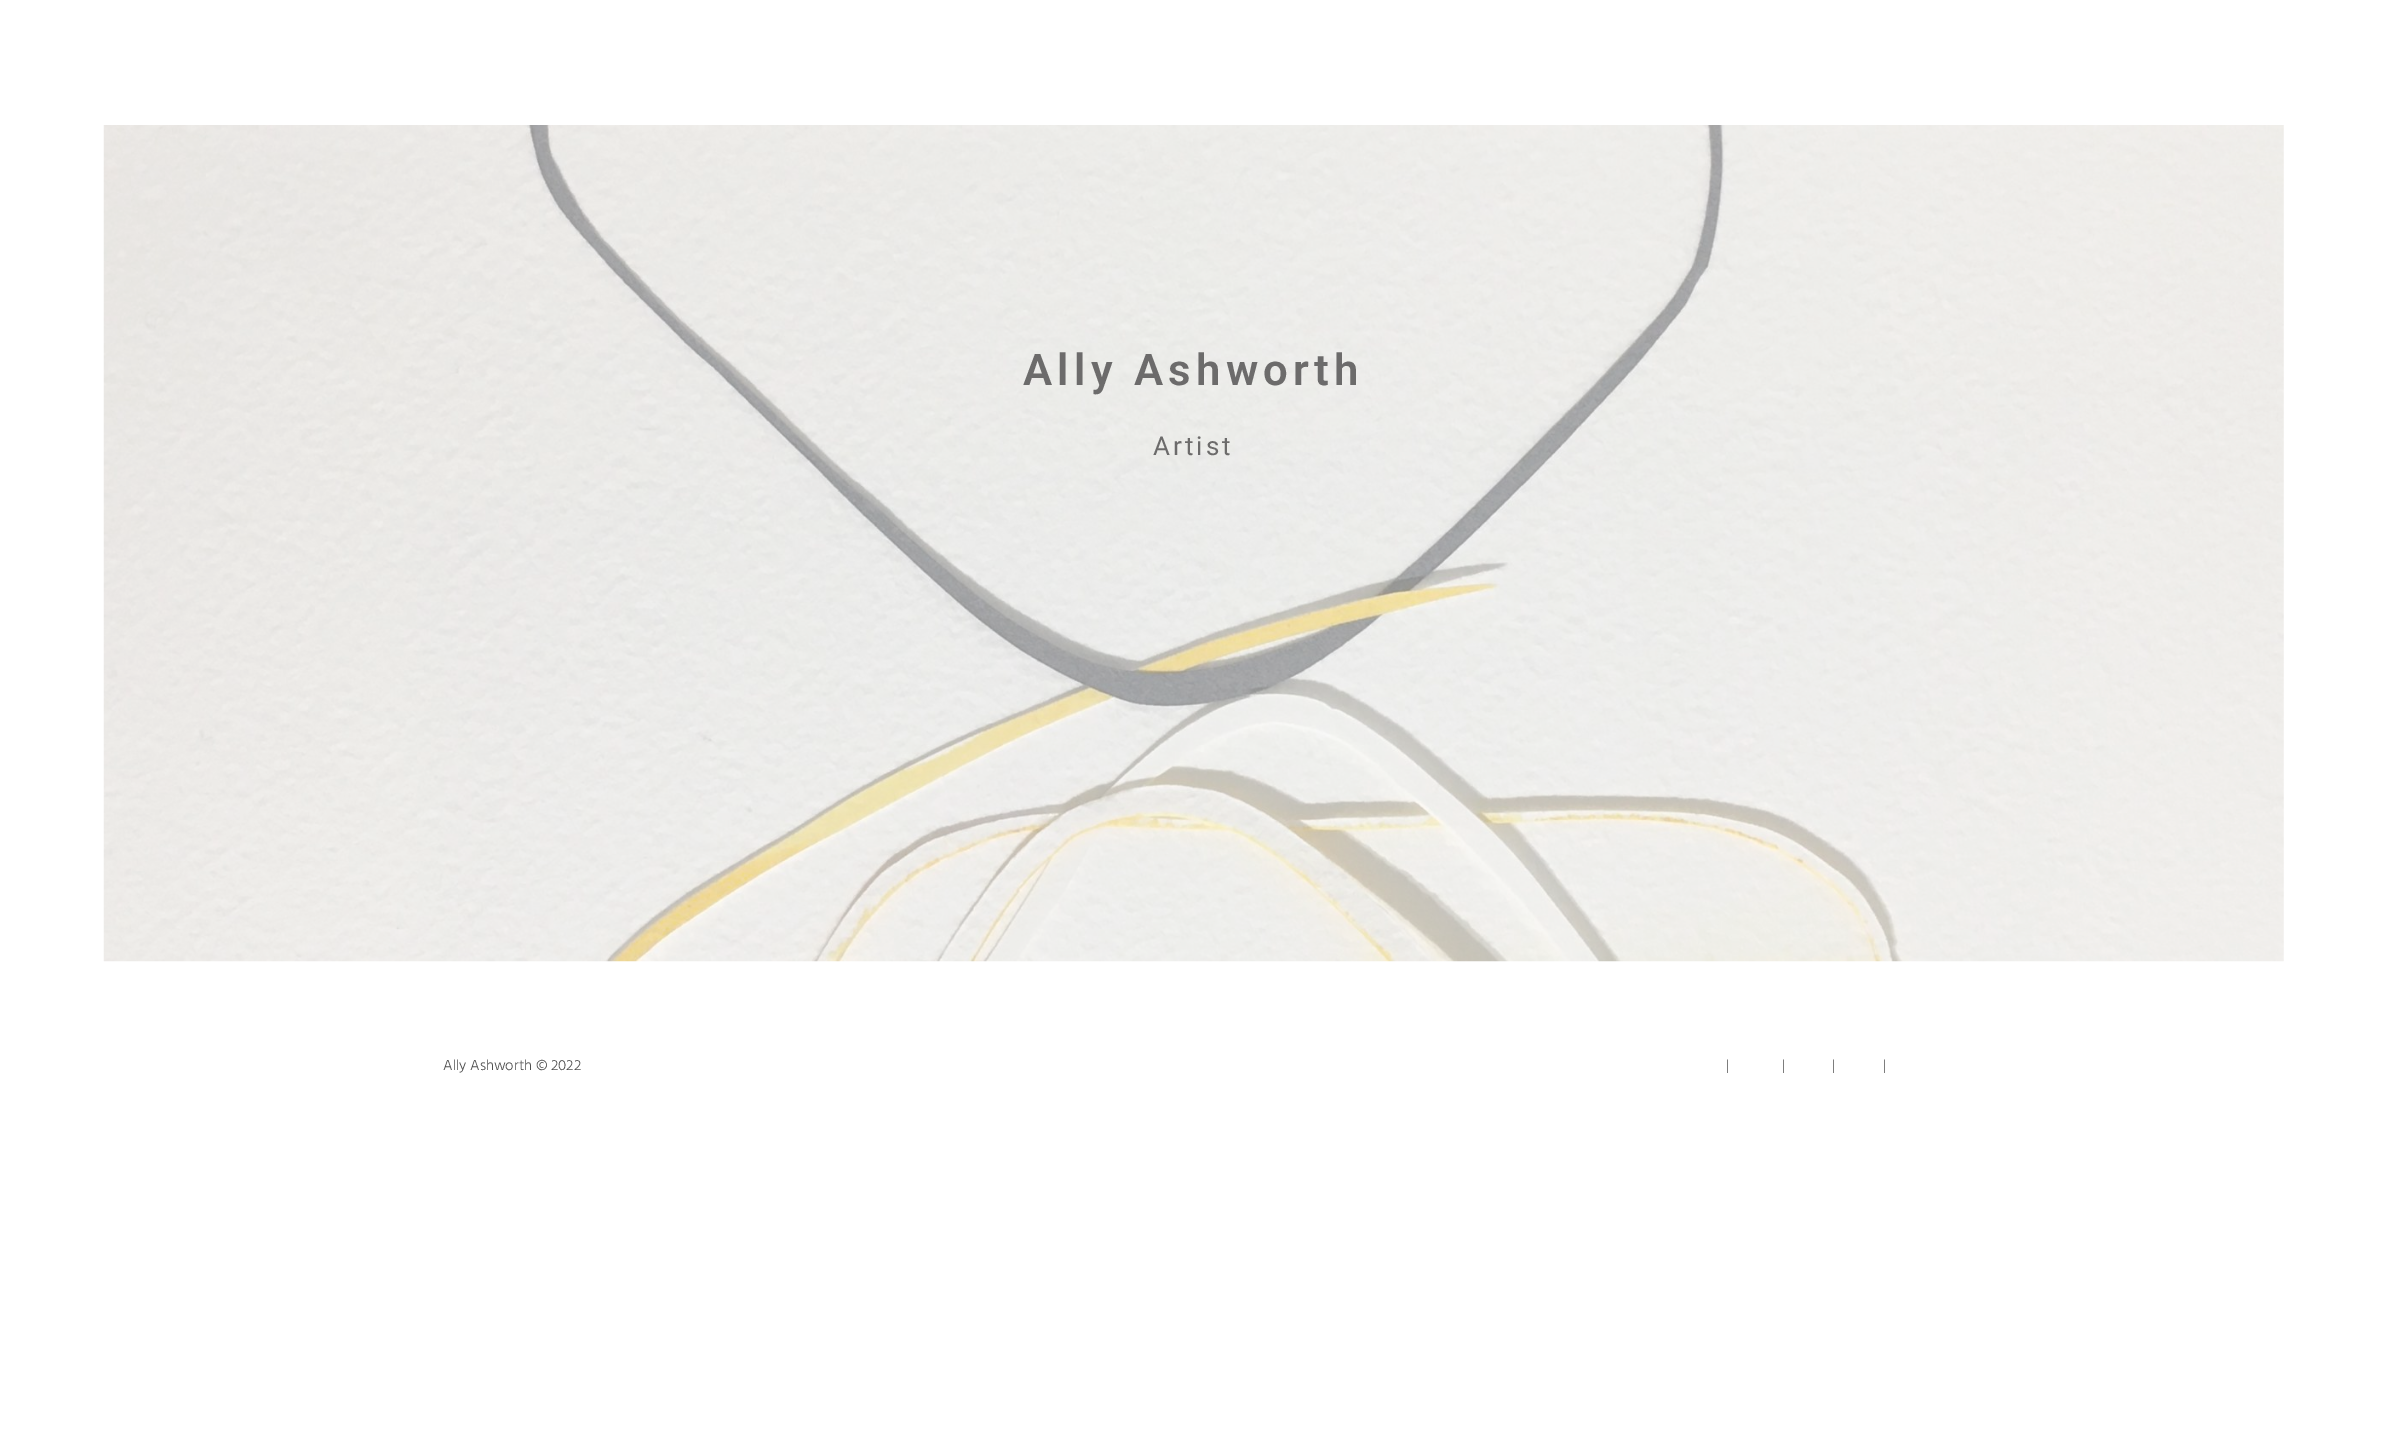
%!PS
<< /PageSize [2386 1441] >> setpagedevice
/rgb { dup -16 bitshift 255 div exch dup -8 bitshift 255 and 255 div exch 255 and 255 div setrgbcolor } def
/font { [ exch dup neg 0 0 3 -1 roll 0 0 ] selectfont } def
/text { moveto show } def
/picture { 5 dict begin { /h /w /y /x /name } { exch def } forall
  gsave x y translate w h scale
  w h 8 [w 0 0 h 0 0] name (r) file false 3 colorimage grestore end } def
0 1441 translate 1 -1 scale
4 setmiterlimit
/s1 { /HindGuntur-Light 15 font 16#4F4F4F rgb } def
16#FFFFFF rgb
0 0 2386 1441 rectfill
(pic1.raw) 103 125 2181 837 picture
/Roboto-SemiBold 43.75 font
16#6C6B6B rgb
1023 385 moveto 5.25 0 (Ally Ashworth) ashow
/Roboto-Regular 26 font
1153 455 moveto 3 0 (Artist) ashow
s1
(Ally Ashworth © 2022) 443 1070 text
(|) 1726 1070 text
(|) 1782 1070 text
(|) 1832 1070 text
(|) 1883 1070 text
showpage
